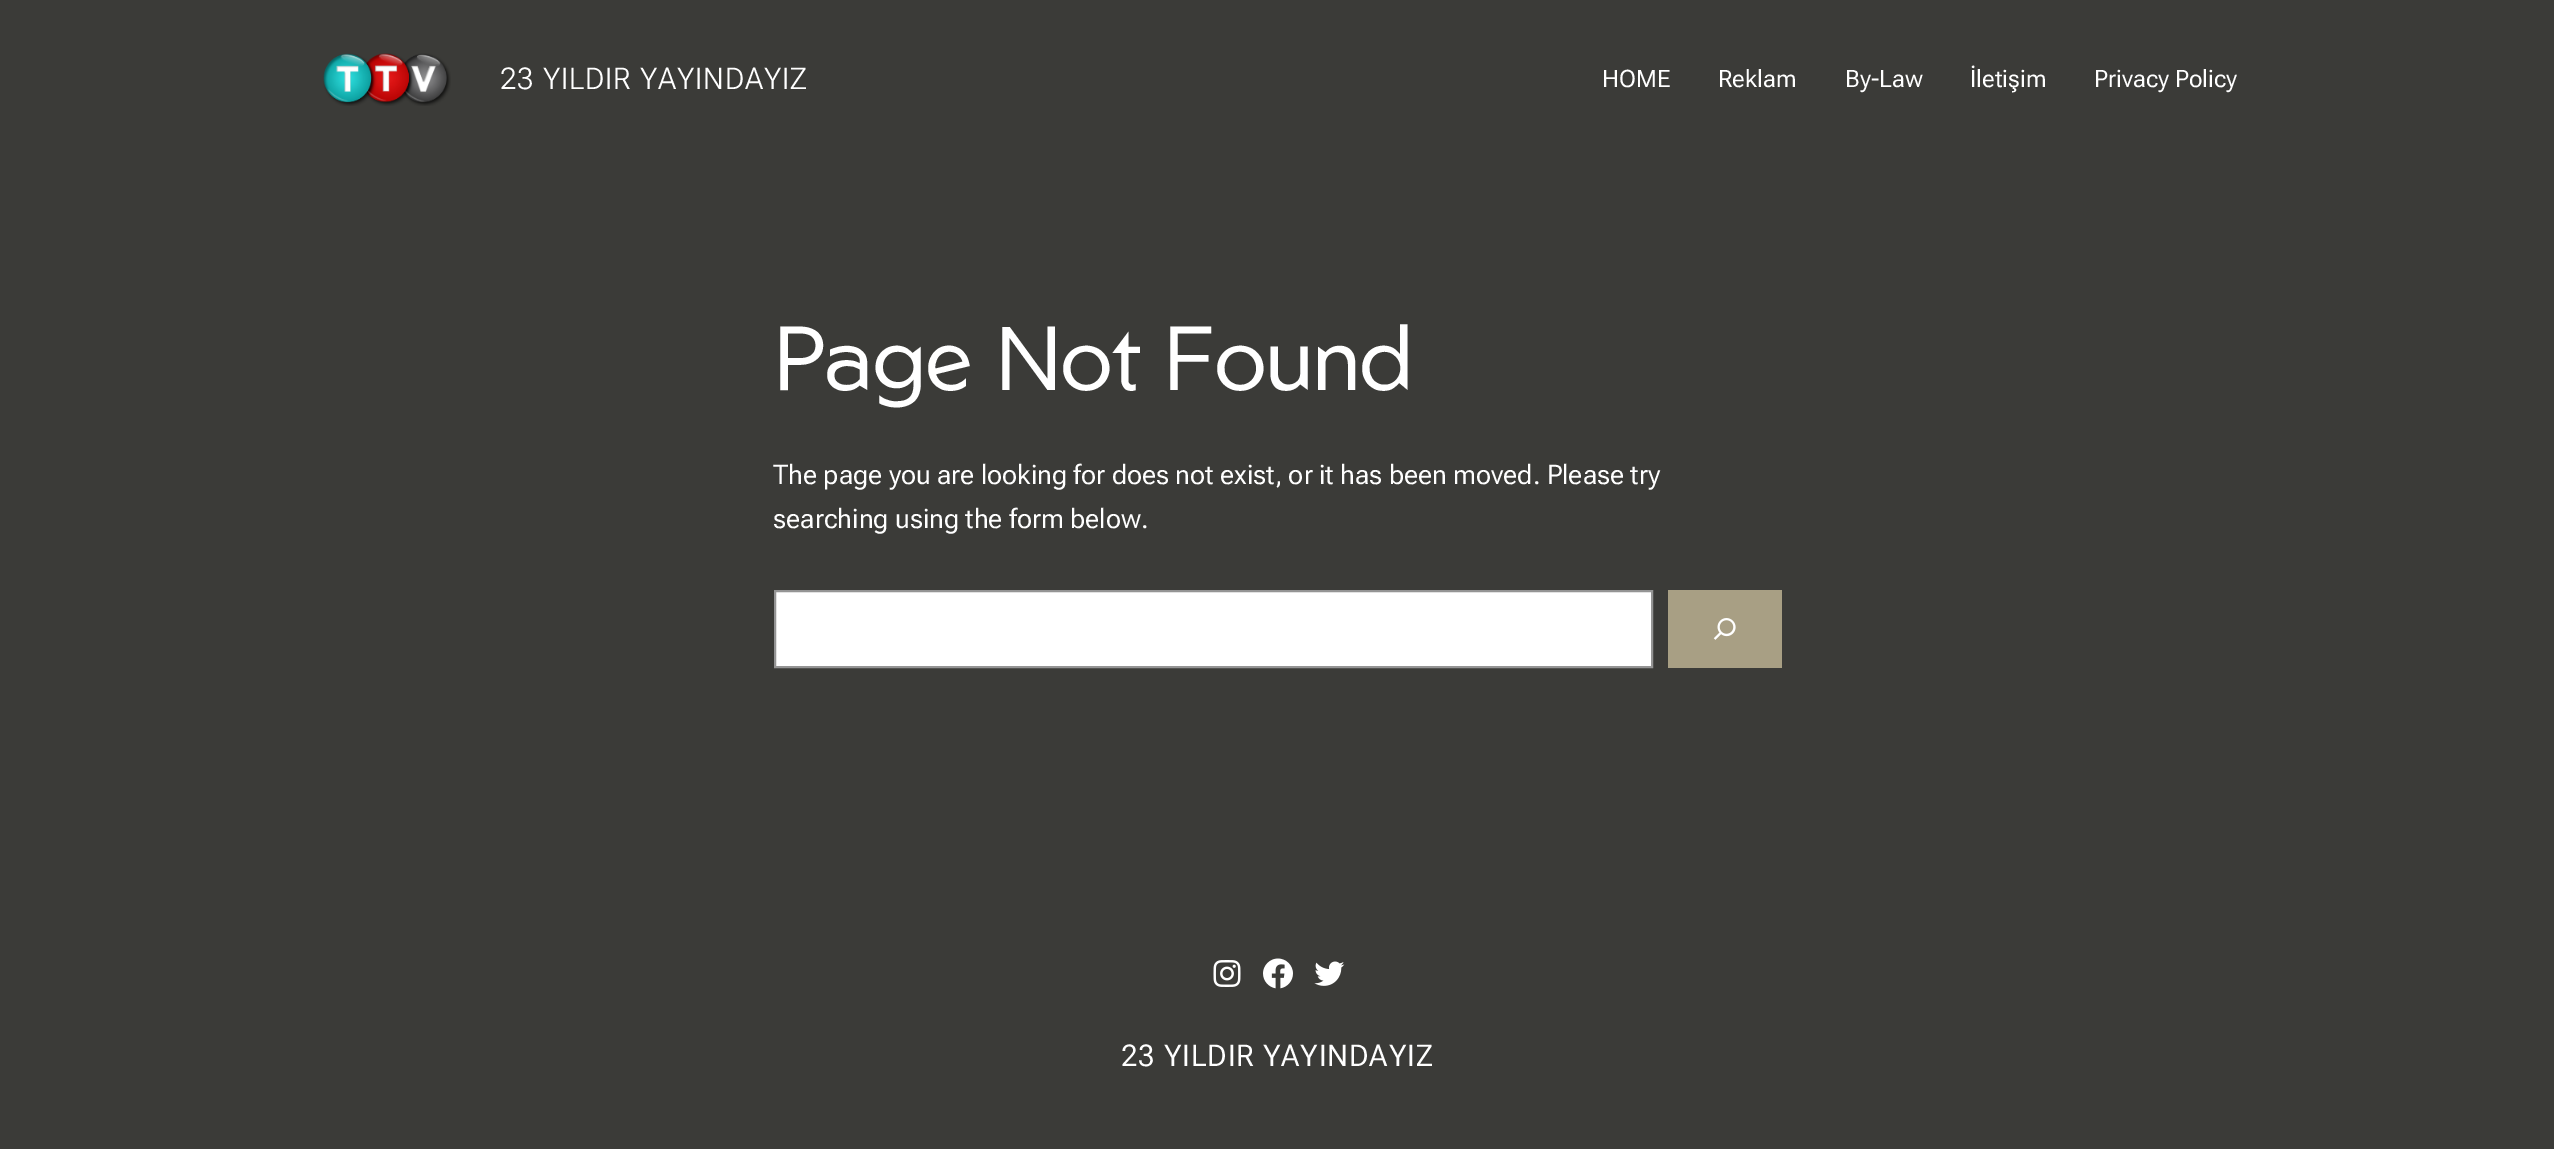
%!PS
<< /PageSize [2554 1149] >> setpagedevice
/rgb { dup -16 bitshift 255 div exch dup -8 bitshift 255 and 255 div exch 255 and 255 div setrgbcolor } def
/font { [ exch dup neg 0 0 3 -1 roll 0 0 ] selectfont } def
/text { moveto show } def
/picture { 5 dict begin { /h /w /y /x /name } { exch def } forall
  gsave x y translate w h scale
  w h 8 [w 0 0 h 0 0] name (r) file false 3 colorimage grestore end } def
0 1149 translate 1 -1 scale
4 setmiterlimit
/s1 { /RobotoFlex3-Regular 24 font 16#FFFFFF rgb } def
/s2 { /RobotoFlex-Regular 27 font 16#FFFFFF rgb } def
16#3B3B38 rgb
0 0 2554 1149 rectfill
(pic1.raw) 323 53 128 53 picture
/RobotoFlex-Light 30 font
16#FFFFFF rgb
500 89 moveto 0.9 0 (23 YILDIR YAYINDAYIZ) ashow
s1
(HOME) 1602 87 text
(Reklam) 1718 87 text
(By-Law) 1845 87 text
(İletişim) 1970 87 text
(Privacy Policy) 2094 87 text
/Geom-Light 90 font
773 390 moveto -1.75 0 (Page Not Found) ashow
s2
(The page you are looking for does not exist, or it has been moved. Please try) 773 484 text
(searching using the form below.) 773 528 text
775 591 moveto 1652 591 lineto 1652 667 lineto 775 667 lineto closepath gsave fill grestore
16#949494 rgb
2 setlinewidth
stroke
16#A89F84 rgb
1668 590 114 78 rectfill
(pic2.raw) 1713 618 23 22 picture
(pic3.raw) 1213 960 28 27 picture
(pic4.raw) 1263 958 30 31 picture
(pic5.raw) 1314 961 31 25 picture
/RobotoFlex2-Regular 30 font
16#FFFFFF rgb
1121 1066 moveto 0.9 0 (23 YILDIR YAYINDAYIZ) ashow
showpage
